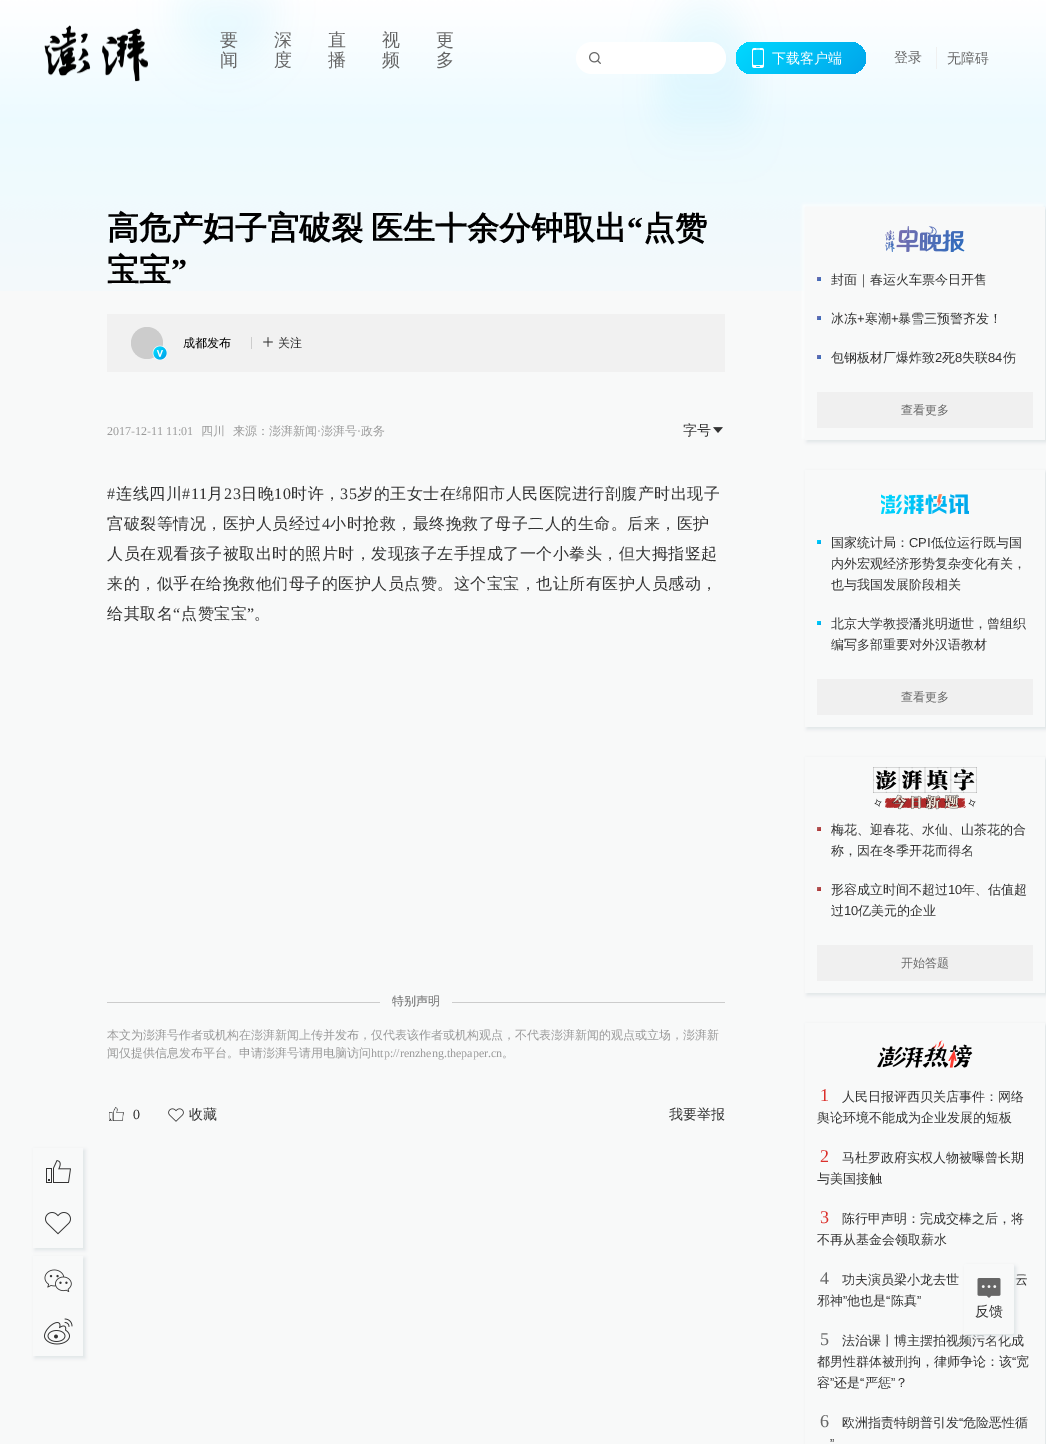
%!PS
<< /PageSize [1046 1444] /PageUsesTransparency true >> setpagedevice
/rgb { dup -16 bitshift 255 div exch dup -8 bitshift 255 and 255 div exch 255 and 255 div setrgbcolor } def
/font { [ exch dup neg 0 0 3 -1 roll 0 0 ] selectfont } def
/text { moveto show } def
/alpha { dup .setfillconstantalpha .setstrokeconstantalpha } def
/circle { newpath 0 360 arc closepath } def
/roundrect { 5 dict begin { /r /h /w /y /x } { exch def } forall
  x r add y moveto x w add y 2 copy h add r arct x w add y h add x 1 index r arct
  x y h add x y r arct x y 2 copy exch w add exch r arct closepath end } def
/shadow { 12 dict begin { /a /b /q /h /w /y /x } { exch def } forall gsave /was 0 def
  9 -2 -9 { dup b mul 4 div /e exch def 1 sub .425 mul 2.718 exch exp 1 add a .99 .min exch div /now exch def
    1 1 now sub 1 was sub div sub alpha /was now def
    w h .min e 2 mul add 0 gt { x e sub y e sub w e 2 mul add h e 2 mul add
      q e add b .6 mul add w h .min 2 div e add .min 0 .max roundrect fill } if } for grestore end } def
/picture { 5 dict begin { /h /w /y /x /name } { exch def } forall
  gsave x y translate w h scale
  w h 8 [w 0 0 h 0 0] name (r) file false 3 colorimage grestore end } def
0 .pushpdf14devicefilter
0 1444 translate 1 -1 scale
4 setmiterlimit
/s1 { /WenQuanYiZenHei-Medium 18 font 16#666666 rgb } def
/s2 { /WenQuanYiZenHei-Medium 14 font 16#FFFFFF rgb } def
/s3 { /WenQuanYiZenHei-Medium 14 font 16#666666 rgb } def
/s4 { /LiberationSerif-Bold 32 font 16#000000 rgb } def
/s5 { /WenQuanYiZenHei-Bold 32 font 16#000000 rgb } def
/s6 { /WenQuanYiZenHei-Medium 12 font 16#000000 rgb } def
/s7 { /WenQuanYiZenHei-Medium 12 font 16#333333 rgb } def
/s8 { /LiberationSerif-Regular 12 font 16#999999 rgb } def
/s9 { /WenQuanYiZenHei-Medium 12 font 16#999999 rgb } def
/s10 { /WenQuanYiZenHei-Medium 14 font 16#333333 rgb } def
/s11 { /WenQuanYiZenHei-Medium 12 font 16#666666 rgb } def
/s12 { /LiberationSerif-Regular 14 font 16#333333 rgb } def
/s13 { /WenQuanYiZenHei-Medium 13 font 16#333333 rgb } def
/s14 { /LiberationSans-Regular 13 font 16#333333 rgb } def
/s15 { /LiberationSerif-Regular 18 font 16#DB302C rgb } def
/s16 { /LiberationSerif-Regular 18 font 16#666666 rgb } def
16#F8F9F9 rgb
0 0 1046 1444 rectfill
(pic1.raw) 0 0 1046 291 picture
(pic2.raw) 44 25 104 57 picture
s1
(要) 220 46 text
(闻) 220 66 text
(深) 274 46 text
(度) 274 66 text
(直) 328 46 text
(播) 328 66 text
(视) 382 46 text
(频) 382 66 text
(更) 436 46 text
(多) 436 66 text
16#FFFFFF rgb
576 42 150 32 16 roundrect fill
(pic3.raw) 589 52 12 12 picture
gsave 736 42 130 32 16 roundrect clip newpath
<< /ShadingType 2 /ColorSpace /DeviceRGB /Coords [761 18 842 99] /Extend [true true] /Function << /FunctionType 2 /Domain [0 1] /C0 [0 0.851 1] /C1 [0 0.647 0.922] /N 1 >> >> shfill grestore
(pic4.raw) 752 48 12 20 picture
s2
(下载客户端) 772 63 text
s3
(登录) 894 62 text
16#F0F0F0 rgb
936 47 1 22 rectfill
s3
(无障碍) 947 63 text
gsave
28 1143 moveto 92 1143 lineto 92 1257 lineto 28 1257 lineto closepath 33 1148 moveto 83 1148 lineto 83 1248 lineto 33 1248 lineto closepath eoclip newpath
16#DEE4E6 rgb
35 1150 50 100 0 2 1 shadow
grestore
(pic5.raw) 46 1160 25 23 picture
(pic6.raw) 45 1212 26 23 picture
gsave
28 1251 moveto 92 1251 lineto 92 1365 lineto 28 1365 lineto closepath 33 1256 moveto 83 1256 lineto 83 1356 lineto 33 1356 lineto closepath eoclip newpath
16#DEE4E6 rgb
35 1258 50 100 0 2 1 shadow
grestore
(pic7.raw) 44 1269 28 23 picture
(pic8.raw) 44 1318 29 27 picture
/WenQuanYiZenHei-Bold 32 font
16#000000 rgb
107 239 moveto -2 0 32 (高危产妇子宫破裂 医生十余分钟取出) widthshow
s4
(“) 627 239 text
s5
(点赞) 643 239 text
(宝宝) 107 281 text
s4
(”) 171 281 text
16#F1F1F1 rgb
107 314 618 58 rectfill
16#CCCCCC rgb
147 343 16 circle fill
(pic9.raw) 152 345 15 15 picture
s6
(成都发布) 183 347 text
16#CCCCCC rgb
251 337 1 12 rectfill
(pic10.raw) 263 337 10 10 picture
s7
(关注) 278 347 text
s8
(2017-12-11 11:01) 107 435 text
s9
(四川) 201 435 text
(来源：澎湃新闻) 233 435 text
s8
(·) 317 435 text
s9
(澎湃号) 321 435 text
s8
(·) 357 435 text
s9
(政务) 361 435 text
s10
(字号) 683 435 text
(pic11.raw) 713 427 10 6 picture
/LiberationSerif-Regular 16 font
107 499 moveto 0.5 0 (#) ashow
/WenQuanYiZenHei-Medium 16 font
116 499 moveto 0.5 0 (连线四川) ashow
/LiberationSerif-Regular 16 font
182 499 moveto 0.5 0 (#11) ashow
/WenQuanYiZenHei-Medium 16 font
207 499 moveto 0.5 0 (月) ashow
/LiberationSerif-Regular 16 font
224 499 moveto 0.5 0 (23) ashow
/WenQuanYiZenHei-Medium 16 font
241 499 moveto 0.5 0 (日晚) ashow
/LiberationSerif-Regular 16 font
274 499 moveto 0.5 0 (10) ashow
/WenQuanYiZenHei-Medium 16 font
291 499 moveto 0.5 0 (时许，) ashow
/LiberationSerif-Regular 16 font
340 499 moveto 0.5 0 (35) ashow
/WenQuanYiZenHei-Medium 16 font
357 499 moveto 0.5 0 (岁的王女士在绵阳市人民医院进行剖腹产时出现子) ashow
107 529 moveto 0.5 0 (宫破裂等情况，医护人员经过) ashow
/LiberationSerif-Regular 16 font
322 529 moveto 0.5 0 (4) ashow
/WenQuanYiZenHei-Medium 16 font
330 529 moveto 0.5 0 (小时抢救，最终挽救了母子二人的生命。后来，医护) ashow
107 559 moveto 0.5 0 (人员在观看孩子被取出时的照片时，发现孩子左手捏成了一个小拳头，但大拇指竖起) ashow
107 589 moveto 0.5 0 (来的，似乎在给挽救他们母子的医护人员点赞。这个宝宝，也让所有医护人员感动，) ashow
107 619 moveto 0.5 0 (给其取名) ashow
/LiberationSerif-Regular 16 font
173 619 moveto 0.5 0 (“) ashow
/WenQuanYiZenHei-Medium 16 font
181 619 moveto 0.5 0 (点赞宝宝) ashow
/LiberationSerif-Regular 16 font
247 619 moveto 0.5 0 (”) ashow
/WenQuanYiZenHei-Medium 16 font
254 619 moveto 0.5 0 (。) ashow
16#CCCCCC rgb
107 1002 273 1 rectfill
s11
(特别声明) 392 1005 text
16#CCCCCC rgb
452 1002 273 1 rectfill
s9
(本文为澎湃号作者或机构在澎湃新闻上传并发布，仅代表该作者或机构观点，不代表澎湃新闻的观点或立场，澎湃新) 107 1039 text
(闻仅提供信息发布平台。申请澎湃号请用电脑访问) 107 1057 text
s8
(http://renzheng.thepaper.cn) 371 1057 text
s9
(。) 502 1057 text
(pic12.raw) 109 1107 15 14 picture
s12
(0) 133 1119 text
(pic13.raw) 168 1108 16 14 picture
s10
(收藏) 189 1119 text
(我要举报) 669 1119 text
16#FFFFFF rgb
803 205 240 233 0 2 1 shadow
16#DEE4E6 rgb
807 209 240 233 0 2 1 shadow
16#F8F9F9 rgb
805 207 240 233 rectfill
(pic14.raw) 885 226 80 26 picture
gsave 817 277 moveto 821 277 lineto 821 281 lineto 817 281 lineto closepath clip newpath
<< /ShadingType 2 /ColorSpace /DeviceRGB /Coords [821 281 817 277] /Extend [true true] /Function << /FunctionType 2 /Domain [0 1] /C0 [0.161 0.424 0.745] /C1 [0.478 0.431 0.686] /N 1 >> >> shfill grestore
s13
(封面｜春运火车票今日开售) 831 284 text
gsave 817 316 moveto 821 316 lineto 821 320 lineto 817 320 lineto closepath clip newpath
<< /ShadingType 2 /ColorSpace /DeviceRGB /Coords [821 320 817 316] /Extend [true true] /Function << /FunctionType 2 /Domain [0 1] /C0 [0.161 0.424 0.745] /C1 [0.478 0.431 0.686] /N 1 >> >> shfill grestore
(冰冻) 831 323 text
s14
(+) 857 323 text
s13
(寒潮) 865 323 text
s14
(+) 891 323 text
s13
(暴雪三预警齐发！) 898 323 text
gsave 817 355 moveto 821 355 lineto 821 359 lineto 817 359 lineto closepath clip newpath
<< /ShadingType 2 /ColorSpace /DeviceRGB /Coords [821 359 817 355] /Extend [true true] /Function << /FunctionType 2 /Domain [0 1] /C0 [0.161 0.424 0.745] /C1 [0.478 0.431 0.686] /N 1 >> >> shfill grestore
(包钢板材厂爆炸致) 831 362 text
s14
(2) 935 362 text
s13
(死) 942 362 text
s14
(8) 955 362 text
s13
(失联) 962 362 text
s14
(84) 988 362 text
s13
(伤) 1003 362 text
16#F0F0F0 rgb
817 392 216 36 rectfill
s11
(查看更多) 901 414 text
gsave
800 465 moveto 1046 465 lineto 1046 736 lineto 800 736 lineto closepath 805 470 moveto 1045 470 lineto 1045 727 lineto 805 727 lineto closepath eoclip newpath
16#DEE4E6 rgb
807 472 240 257 0 2 1 shadow
grestore
(pic15.raw) 881 494 88 20 picture
gsave 817 540 moveto 821 540 lineto 821 544 lineto 817 544 lineto closepath clip newpath
<< /ShadingType 2 /ColorSpace /DeviceRGB /Coords [817 540 821 544] /Extend [true true] /Function << /FunctionType 2 /Domain [0 1] /C0 [0 0.851 1] /C1 [0 0.647 0.922] /N 1 >> >> shfill grestore
s13
(国家统计局：) 831 547 text
s14
(CPI) 909 547 text
s13
(低位运行既与国) 931 547 text
(内外宏观经济形势复杂变化有关，) 831 568 text
(也与我国发展阶段相关) 831 589 text
gsave 817 621 moveto 821 621 lineto 821 625 lineto 817 625 lineto closepath clip newpath
<< /ShadingType 2 /ColorSpace /DeviceRGB /Coords [817 621 821 625] /Extend [true true] /Function << /FunctionType 2 /Domain [0 1] /C0 [0 0.851 1] /C1 [0 0.647 0.922] /N 1 >> >> shfill grestore
(北京大学教授潘兆明逝世，曾组织) 831 628 text
(编写多部重要对外汉语教材) 831 649 text
16#F0F0F0 rgb
817 679 216 36 rectfill
s11
(查看更多) 901 701 text
gsave
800 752 moveto 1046 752 lineto 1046 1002 lineto 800 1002 lineto closepath 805 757 moveto 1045 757 lineto 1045 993 lineto 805 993 lineto closepath eoclip newpath
16#DEE4E6 rgb
807 759 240 236 0 2 1 shadow
grestore
(pic16.raw) 873 767 104 43 picture
gsave 817 827 moveto 821 827 lineto 821 831 lineto 817 831 lineto closepath clip newpath
<< /ShadingType 2 /ColorSpace /DeviceRGB /Coords [817 827 821 831] /Extend [true true] /Function << /FunctionType 2 /Domain [0 1] /C0 [0.702 0.408 0.408] /C1 [0.69 0.161 0.161] /N 1 >> >> shfill grestore
s13
(梅花、迎春花、水仙、山茶花的合) 831 834 text
(称，因在冬季开花而得名) 831 855 text
gsave 817 887 moveto 821 887 lineto 821 891 lineto 817 891 lineto closepath clip newpath
<< /ShadingType 2 /ColorSpace /DeviceRGB /Coords [817 887 821 891] /Extend [true true] /Function << /FunctionType 2 /Domain [0 1] /C0 [0.702 0.408 0.408] /C1 [0.69 0.161 0.161] /N 1 >> >> shfill grestore
(形容成立时间不超过) 831 894 text
s14
(10) 948 894 text
s13
(年、估值超) 962 894 text
(过) 831 915 text
s14
(10) 844 915 text
s13
(亿美元的企业) 858 915 text
16#F0F0F0 rgb
817 945 216 36 rectfill
s11
(开始答题) 901 967 text
gsave
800 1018 moveto 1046 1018 lineto 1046 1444 lineto 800 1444 lineto closepath 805 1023 moveto 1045 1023 lineto 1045 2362 lineto 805 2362 lineto closepath eoclip newpath
16#DEE4E6 rgb
807 1025 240 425 0 2 1 shadow
grestore
(pic17.raw) 877 1040 96 28 picture
s15
(1) 820 1101 text
s13
(人民日报评西贝关店事件：网络) 842 1101 text
(舆论环境不能成为企业发展的短板) 817 1122 text
s15
(2) 820 1162 text
s13
(马杜罗政府实权人物被曝曾长期) 842 1162 text
(与美国接触) 817 1183 text
s15
(3) 820 1223 text
s13
(陈行甲声明：完成交棒之后，将) 842 1223 text
(不再从基金会领取薪水) 817 1244 text
s16
(4) 820 1284 text
s13
(功夫演员梁小龙去世) 842 1284 text
(云) 1015 1284 text
(邪神) 817 1305 text
s14
(”) 843 1305 text
s13
(他也是) 847 1305 text
s14
(“) 886 1305 text
s13
(陈真) 891 1305 text
s14
(”) 917 1305 text
s16
(5) 820 1345 text
s13
(法治课丨博主摆拍视频污名化成) 842 1345 text
(都男性群体被刑拘，律师争论：该) 817 1366 text
s14
(“) 1012 1366 text
s13
(宽) 1016 1366 text
(容) 817 1387 text
s14
(”) 830 1387 text
s13
(还是) 834 1387 text
s14
(“) 860 1387 text
s13
(严惩) 865 1387 text
s14
(”) 891 1387 text
s13
(？) 895 1387 text
s16
(6) 820 1427 text
s13
(欧洲指责特朗普引发) 842 1427 text
s14
(“) 959 1427 text
s13
(危险恶性循) 963 1427 text
s14
(”) 830 1448 text
16#DEE4E6 rgb
966 1266 50 70 2 2 1 shadow
16#F8F9F9 rgb
964 1264 50 70 2 roundrect fill
(pic18.raw) 977 1278 24 20 picture
s10
(反馈) 975 1316 text
.poppdf14devicefilter showpage
